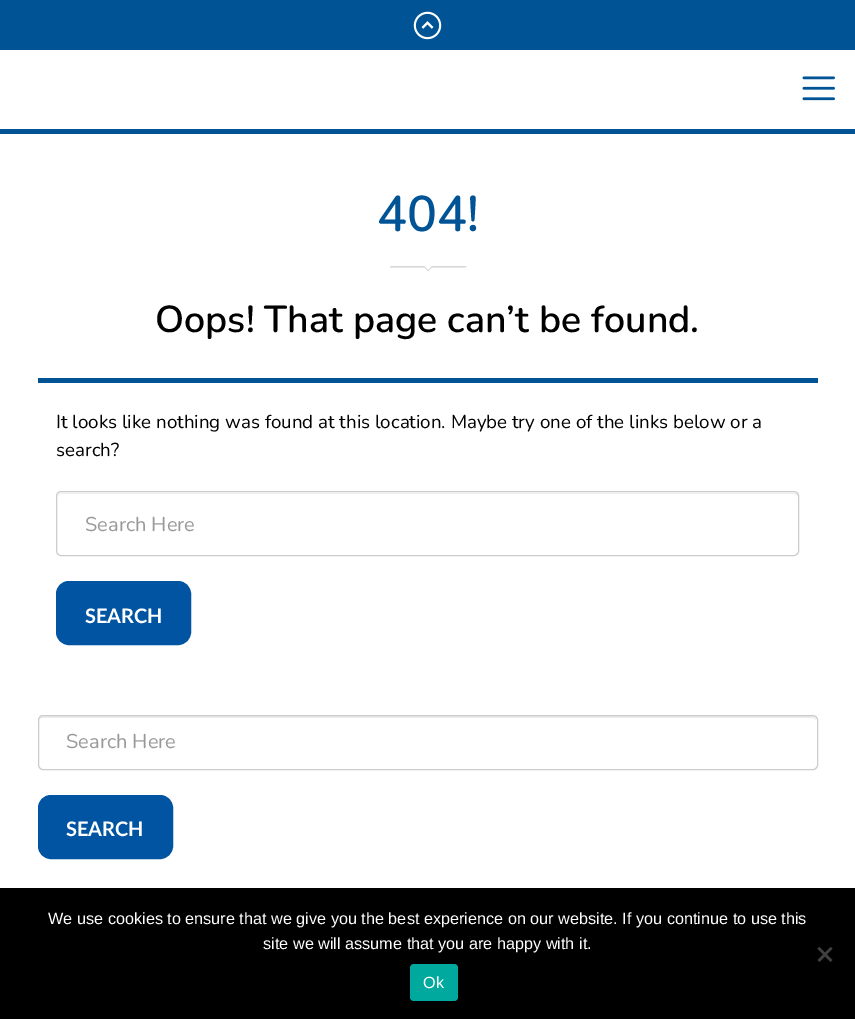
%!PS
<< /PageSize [855 1019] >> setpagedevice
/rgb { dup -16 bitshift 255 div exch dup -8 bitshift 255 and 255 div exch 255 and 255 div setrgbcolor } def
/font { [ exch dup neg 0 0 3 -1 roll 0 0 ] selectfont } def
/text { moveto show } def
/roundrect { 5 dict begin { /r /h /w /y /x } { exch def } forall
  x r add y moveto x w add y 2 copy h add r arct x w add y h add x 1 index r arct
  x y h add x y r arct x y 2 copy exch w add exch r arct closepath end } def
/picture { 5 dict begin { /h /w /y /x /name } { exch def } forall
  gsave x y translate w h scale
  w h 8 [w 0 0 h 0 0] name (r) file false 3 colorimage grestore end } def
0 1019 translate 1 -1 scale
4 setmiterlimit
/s1 { /Nunito-SemiBold 50 font 16#005395 rgb } def
/s2 { /Nunito-SemiBold 37.5 font 16#000000 rgb } def
/s3 { /Nunito-Regular 18.75 font 16#000000 rgb } def
/s4 { /Nunito-Regular 20 font 16#999999 rgb } def
/s5 { /Lato-Bold 20 font 16#FFFFFF rgb } def
/s6 { /LiberationSans-Regular 16.25 font 16#FFFFFF rgb } def
16#FFFFFF rgb
0 0 855 1019 rectfill
16#005395 rgb
0 129 855 5 rectfill
0 0 855 50 rectfill
(pic1.raw) 413 11 29 29 picture
(pic2.raw) 802 76 33 25 picture
38 378 780 5 rectfill
(pic3.raw) 390 266 77 6 picture
s1
(404!) 377 231 text
s2
(Oops! That page can’t be found.) 155 332 text
s3
(It looks like nothing was found at this location. Maybe try one of the links below or a) 56 428 text
(search?) 56 456 text
16#ECECEC rgb
61 494 moveto 794 494 lineto 796 494 798 495 798 498 curveto 798 495 797 493 794 493 curveto 62 493 lineto 59 494 lineto 58 495 lineto 58 498 lineto 58 495 59 494 61 494 curveto closepath fill
16#CCCCCC rgb
56.5 491.5 742 64 4.5 roundrect stroke
s4
(Search Here) 85 531 text
16#0054A1 rgb
56.5 581.5 134 63 12.5 roundrect gsave fill grestore
stroke
s5
(SEARCH) 85 623 text
16#ECECEC rgb
42 718 moveto 812 718 lineto 815 718 816 719 816 721 curveto 816 720 lineto 816 718 814 716 812 716 curveto 43 716 lineto 41 716 39 718 39 720 curveto 39 721 lineto 39 719 40 718 42 718 curveto closepath fill
16#CCCCCC rgb
38.5 715.5 779 54 4.5 roundrect stroke
s4
(Search Here) 66 748 text
16#0054A1 rgb
38.5 795.5 134 63 12.5 roundrect gsave fill grestore
stroke
s5
(SEARCH) 66 836 text
16#000000 rgb
0 888 855 131 rectfill
s6
(We use cookies to ensure that we give you the best experience on our website. If you continue to use this) 48 924 text
(site we will assume that you are happy with it.) 263 949 text
16#404040 rgb
830.5 947 moveto 832.5 948.5 lineto 819.5 962 lineto 817.5 960 lineto closepath fill
817.5 948.5 moveto 819.5 947 lineto 832.5 960 lineto 830.5 962 lineto closepath fill
16#00A99D rgb
410 964 48 37 4 roundrect fill
s6
(Ok) 423 988 text
showpage
